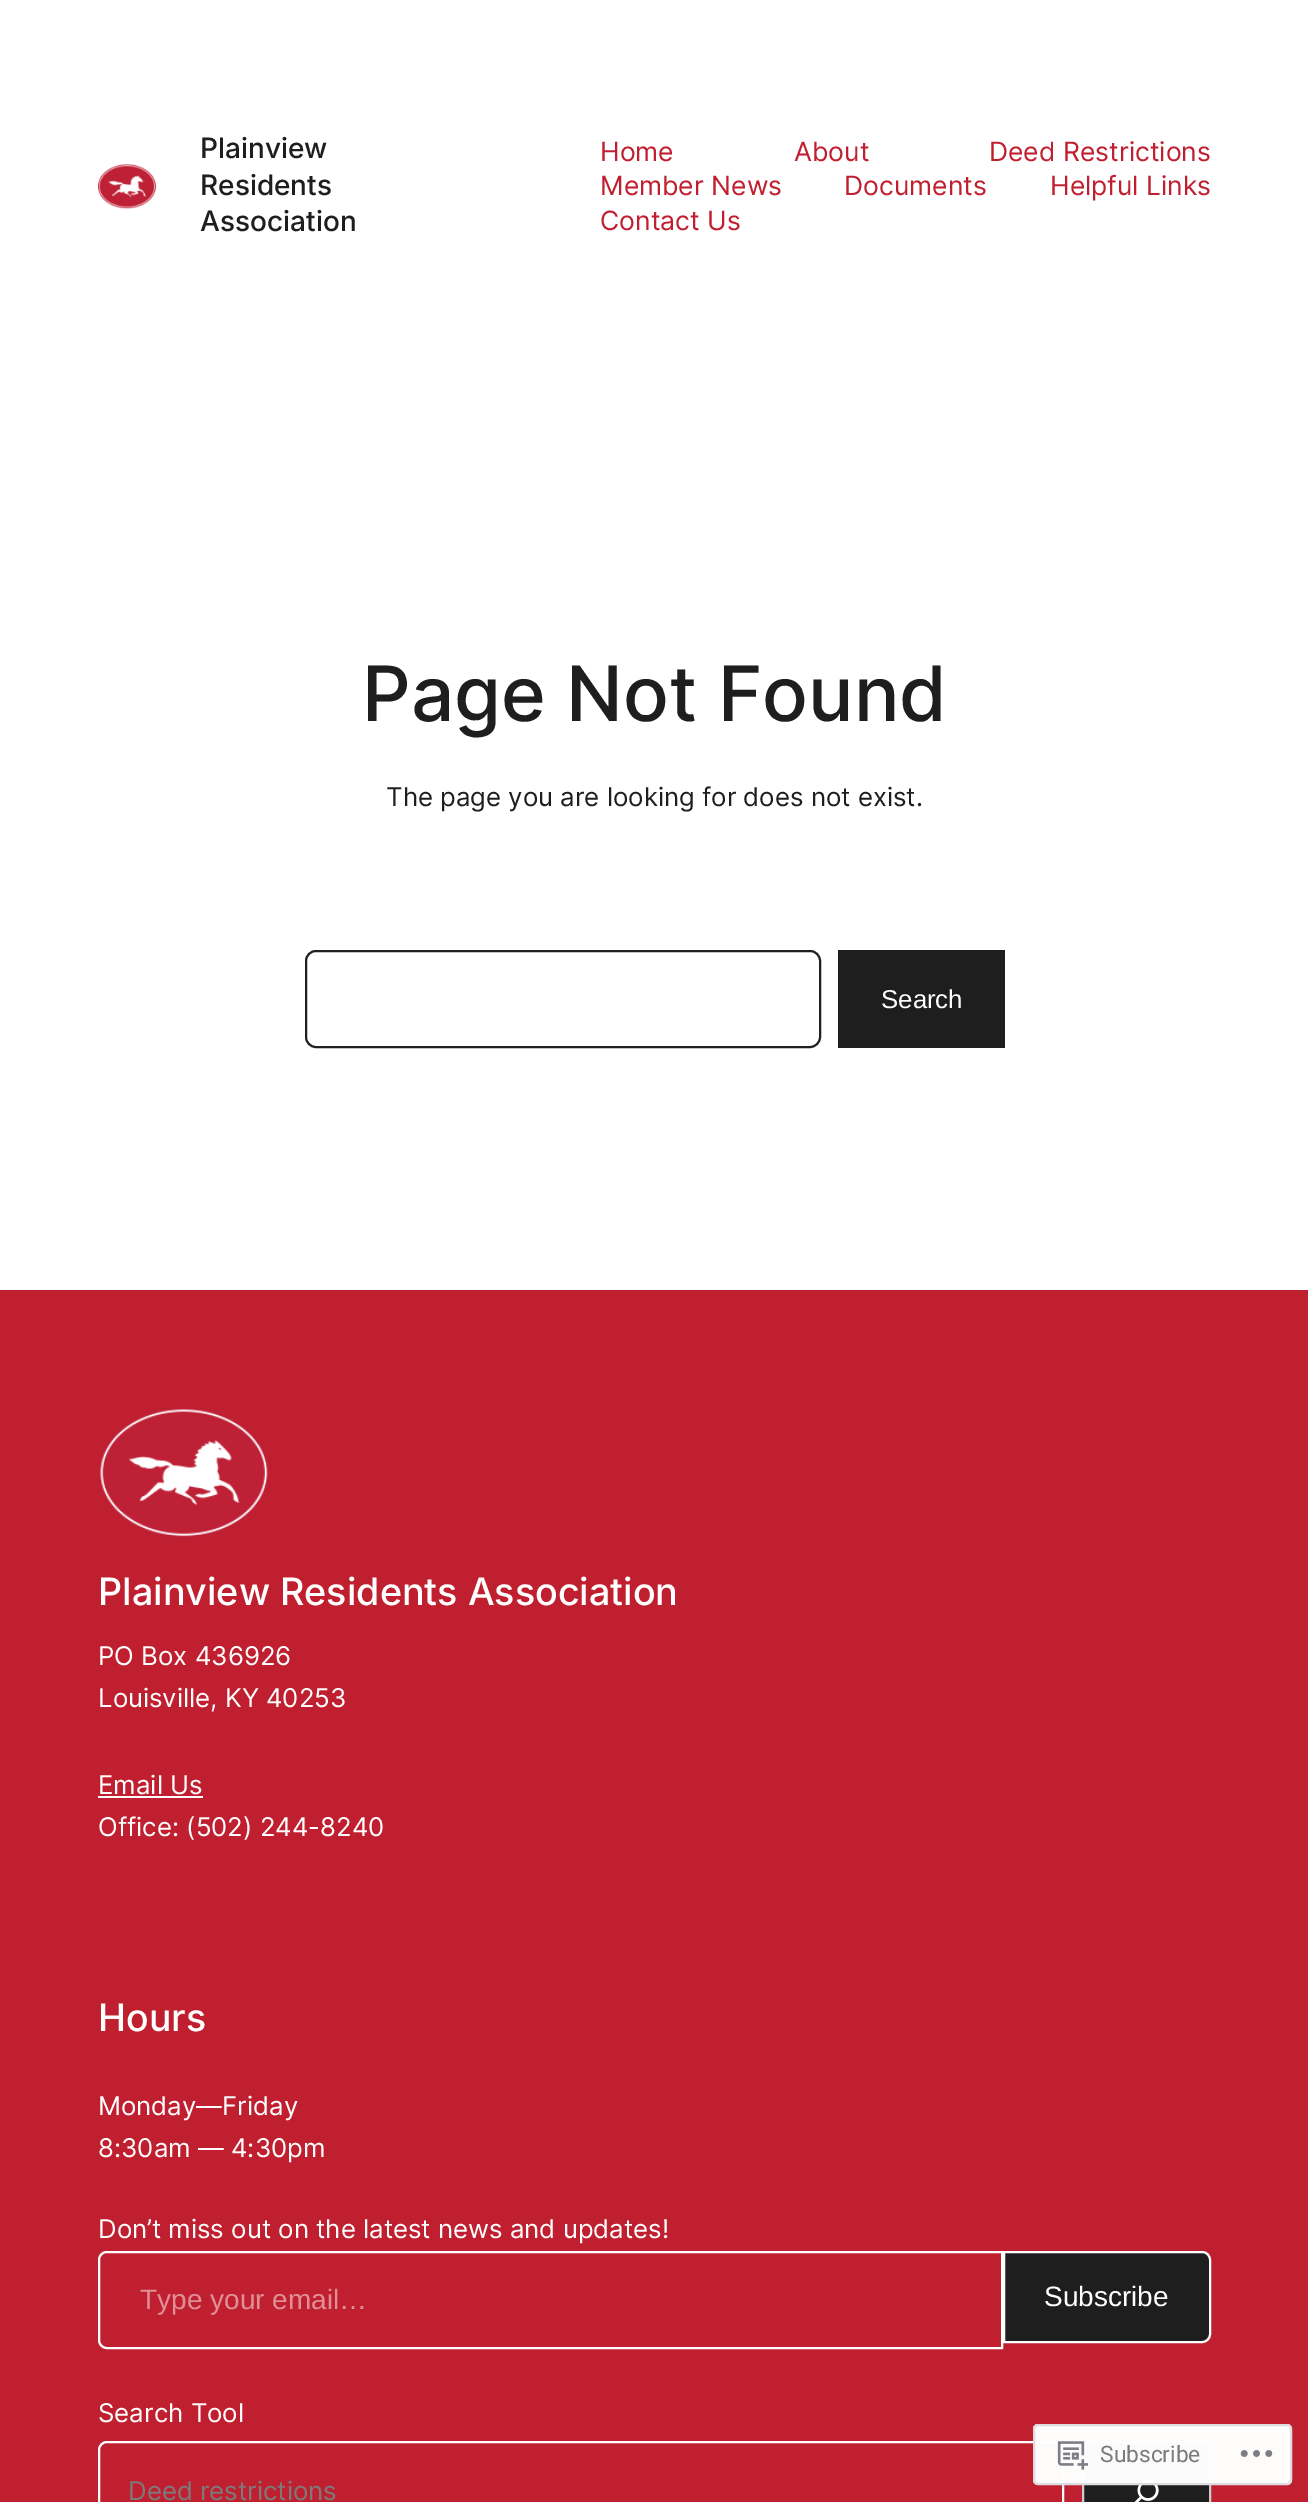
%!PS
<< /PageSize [1308 2502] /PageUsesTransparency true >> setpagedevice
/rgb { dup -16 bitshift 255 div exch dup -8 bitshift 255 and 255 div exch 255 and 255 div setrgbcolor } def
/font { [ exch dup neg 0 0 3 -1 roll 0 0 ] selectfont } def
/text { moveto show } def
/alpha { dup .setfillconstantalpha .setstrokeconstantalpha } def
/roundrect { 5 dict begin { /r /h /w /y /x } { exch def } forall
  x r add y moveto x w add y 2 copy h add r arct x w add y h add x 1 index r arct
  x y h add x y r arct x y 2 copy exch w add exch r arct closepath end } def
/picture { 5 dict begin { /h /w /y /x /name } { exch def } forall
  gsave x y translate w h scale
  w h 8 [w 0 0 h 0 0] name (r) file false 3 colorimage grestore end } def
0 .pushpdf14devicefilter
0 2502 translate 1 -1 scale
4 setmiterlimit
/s1 { /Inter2-Medium 28 font 16#1E1E1E rgb } def
/s2 { /Inter-Regular 26.5 font 16#C01F2F rgb } def
/s3 { /Inter-Medium 76.25 font 16#1E1E1E rgb } def
/s4 { /Inter-Regular 25.8 font 16#1E1E1E rgb } def
/s5 { /LiberationSans-Regular 25.8 font 16#FFFFFF rgb } def
/s6 { /Inter2-Medium 37.7 font 16#FFFFFF rgb } def
/s7 { /Inter-Regular 25.8 font 16#FFFFFF rgb } def
/s8 { /Inter-Medium 37.7 font 16#FFFFFF rgb } def
/s9 { /LiberationSans-Regular 28 font 16#E08F97 rgb } def
/s10 { /LiberationSans-Regular 28 font 16#FFFFFF rgb } def
/s11 { /Inter-Regular 25.8 font 16#7B7B7B rgb } def
/s12 { /Roboto-Regular 22.75 font 16#7B7B7B rgb } def
16#FFFFFF rgb
0 0 1308 2502 rectfill
(pic1.raw) 98 164 58 45 picture
s1
(Plainview) 200 158 text
(Residents) 200 195 text
(Association) 200 231 text
s2
(Home) 600 161 text
(About) 794 161 text
(Deed Restrictions) 989 161 text
(Member News) 600 195 text
(Documents) 844 195 text
(Helpful Links) 1050 195 text
(Contact Us) 600 230 text
s3
(Page Not Found) 362 721 text
s4
(The page you are looking for does not exist.) 386 806 text
16#202020 rgb
2 setlinewidth
306 951 514 96 10 roundrect stroke
16#1E1E1E rgb
838 950 167 98 rectfill
s5
(Search) 881 1008 text
16#C01F2F rgb
0 1290 1308 1212 rectfill
(pic2.raw) 98 1407 171 131 picture
s6
(Plainview Residents Association) 98 1605 text
s7
(PO Box 436926) 98 1665 text
(Louisville, KY 40253) 98 1707 text
(Email Us) 98 1794 text
98 1796 105 2 rectfill
(Office: \(502\) 244-8240) 98 1836 text
s8
(Hours) 98 2031 text
s7
(Monday—Friday) 98 2115 text
(8:30am — 4:30pm) 98 2157 text
(Don’t miss out on the latest news and updates!) 98 2238 text
107 2252 moveto 1002 2252 lineto 1002 2348 lineto 107 2348 lineto 102.5 2348 99 2344.5 99 2340 curveto 99 2260 lineto 99 2255.5 102.5 2252 107 2252 curveto closepath stroke
s9
(Type your email…) 140 2309 text
16#1E1E1E rgb
1004 2252 moveto 1202 2252 lineto 1206.5 2252 1210 2255.5 1210 2260 curveto 1210 2334 lineto 1210 2338.5 1206.5 2342 1202 2342 curveto 1004 2342 lineto closepath gsave fill grestore
16#FFFFFF rgb
stroke
(Subscribe) 1044 2306 text
s7
(Search Tool) 98 2422 text
99 2442 964 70 8 roundrect stroke
s11
(Deed restrictions) 128 2500 text
16#1E1E1E rgb
1083 2442 127 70 8 roundrect gsave fill grestore
16#CCCCCC rgb
stroke
(pic3.raw) 1134 2479 25 23 picture
0.98 alpha
16#FFFFFF rgb
1033 2424 259 61 5 roundrect fill
16#DCDCDE rgb
1034 2425 257 59 4 roundrect stroke
1 alpha
(pic4.raw) 1057 2441 32 29 picture
s12
(Subscribe) 1100 2462 text
(pic5.raw) 1240 2450 33 7 picture
.poppdf14devicefilter showpage
